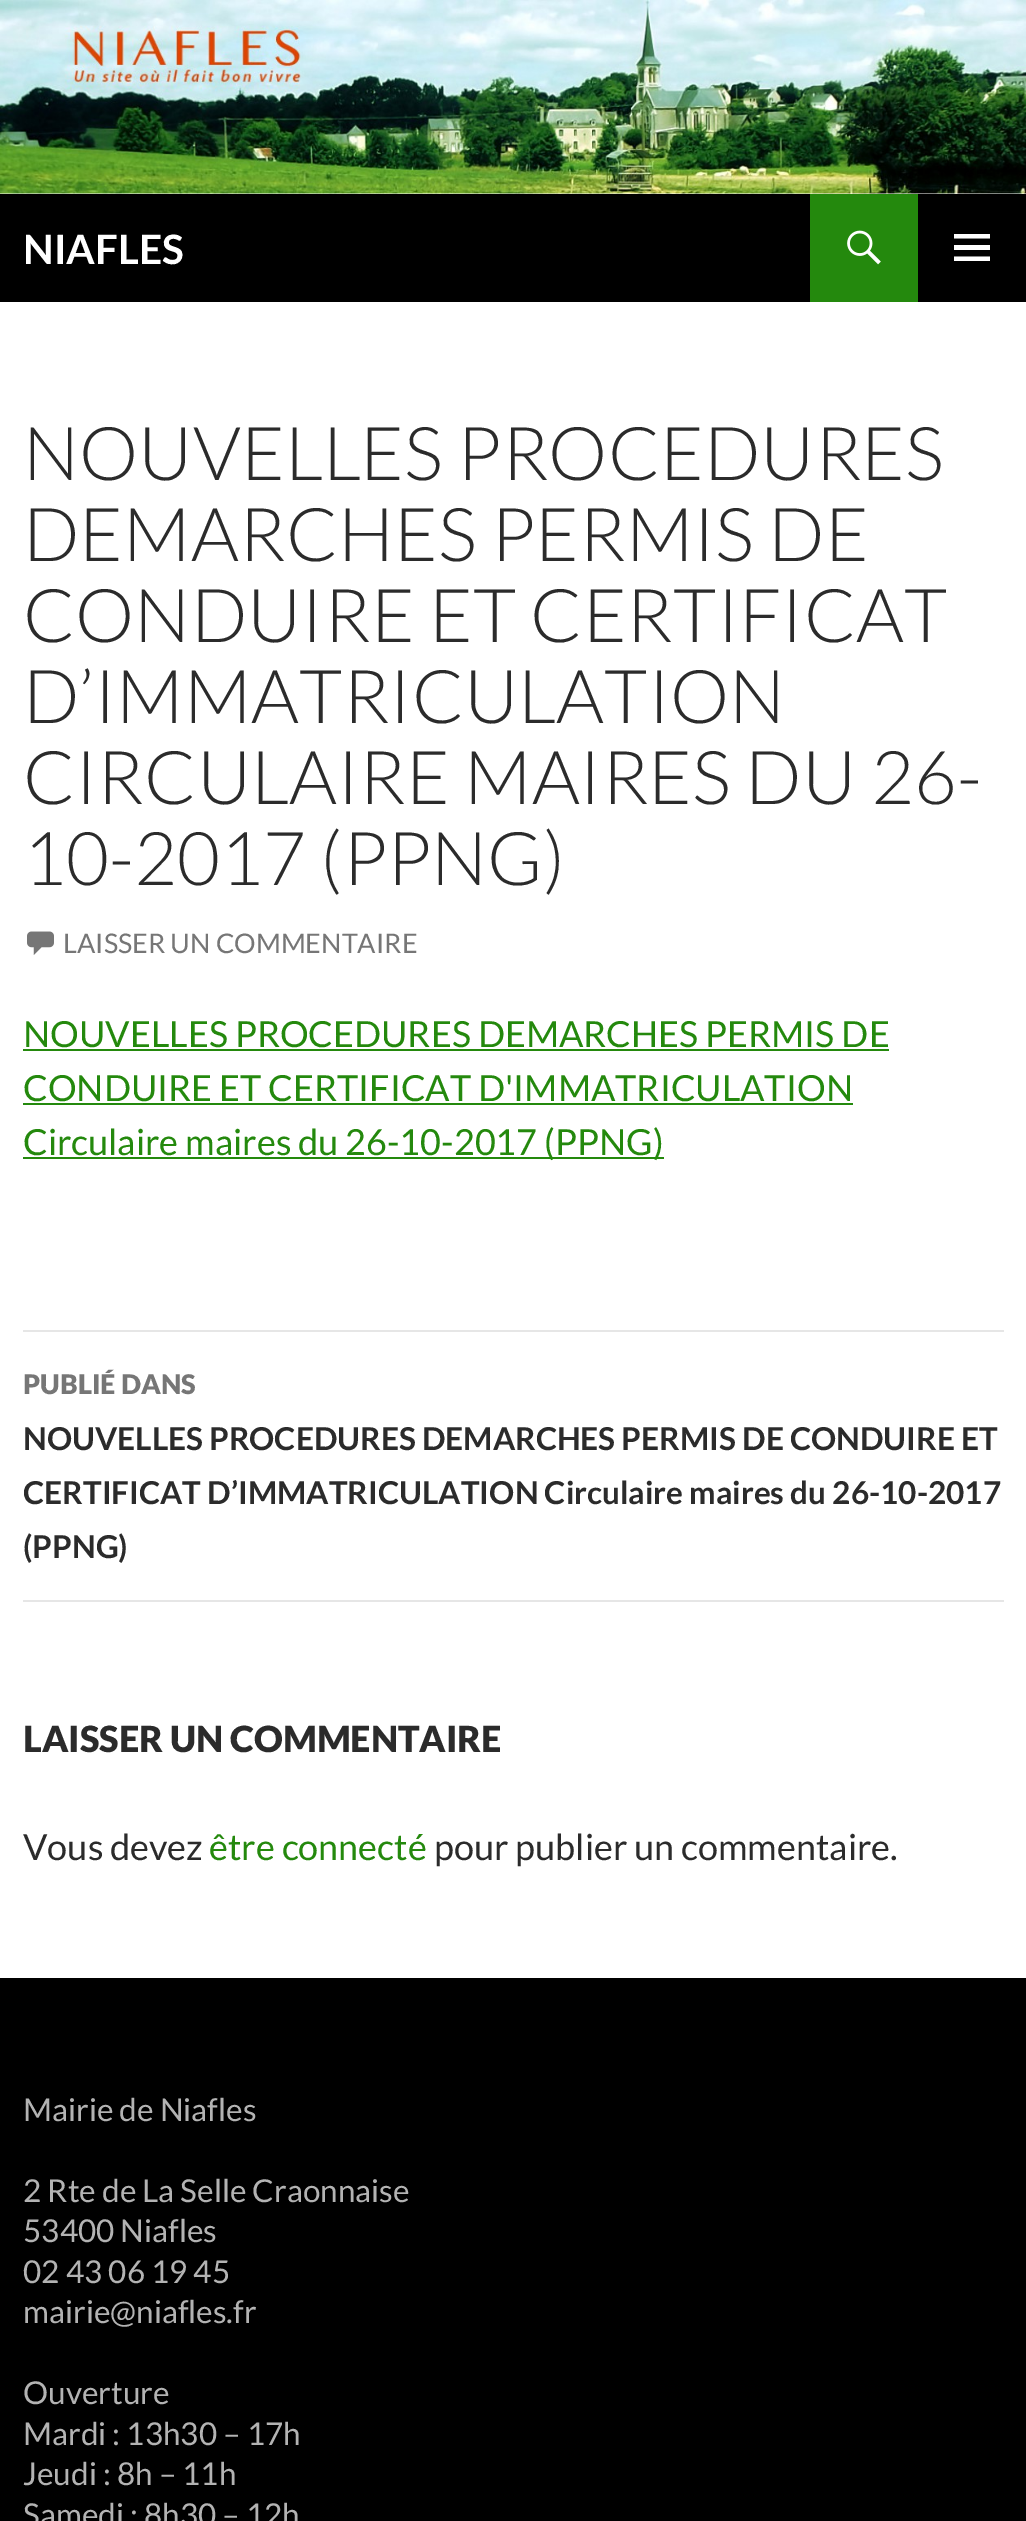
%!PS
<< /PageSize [1026 2521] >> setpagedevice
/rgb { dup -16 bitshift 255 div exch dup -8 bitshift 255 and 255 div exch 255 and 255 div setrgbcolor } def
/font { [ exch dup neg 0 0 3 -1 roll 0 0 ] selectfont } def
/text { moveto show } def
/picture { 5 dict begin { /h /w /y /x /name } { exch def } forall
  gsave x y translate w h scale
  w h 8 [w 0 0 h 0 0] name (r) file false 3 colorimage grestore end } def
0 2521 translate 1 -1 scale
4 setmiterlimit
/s1 { /Lato-Bold 40.5 font 16#FFFFFF rgb } def
/s2 { /Lato-Light 74.25 font 16#2B2B2B rgb } def
/s3 { /Lato-Regular 27 font 16#767676 rgb } def
/s4 { /Lato-Regular 36 font 16#24890D rgb } def
/s5 { /Lato-Black 27 font 16#767676 rgb } def
/s6 { /Lato-Bold 31.5 font 16#2B2B2B rgb } def
/s7 { /Lato-Black 36 font 16#2B2B2B rgb } def
/s8 { /Lato-Regular 36 font 16#2B2B2B rgb } def
/s9 { /Lato-Regular 31.5 font 16#B3B3B3 rgb } def
16#FFFFFF rgb
0 0 1026 2521 rectfill
(pic1.raw) 0 0 1026 194 picture
16#000000 rgb
0 194 1026 108 rectfill
s1
(NIAFLES) 23 264 text
16#24890D rgb
810 194 108 108 rectfill
(pic2.raw) 847 230 34 35 picture
16#FFFFFF rgb
954 261 moveto 954 256.5 lineto 990 256.5 lineto 990 261 lineto closepath 954 250 moveto 954 245 lineto 990 245 lineto 990 250 lineto closepath 954 238.5 moveto 954 234 lineto 990 234 lineto 990 238.5 lineto closepath fill
s2
(NOUVELLES PROCEDURES) 23 480 text
(DEMARCHES PERMIS DE) 23 561 text
(CONDUIRE ET CERTIFICAT) 23 642 text
(D’IMMATRICULATION) 23 723 text
(CIRCULAIRE MAIRES DU 26-) 23 804 text
(10-2017 \(PPNG\)) 23 885 text
(pic3.raw) 27 931 27 24 picture
s3
(LAISSER UN COMMENTAIRE) 63 953 text
s4
(NOUVELLES PROCEDURES DEMARCHES PERMIS DE) 23 1047 text
23 1049 866 2 rectfill
(CONDUIRE ET CERTIFICAT D'IMMATRICULATION) 23 1101 text
23 1103 830 2 rectfill
23 1157 641 2 rectfill
(Circulaire maires du 26-10-2017 \(PPNG\)) 23 1155 text
16#E6E6E6 rgb
23 1330 981 2 rectfill
23 1600 981 2 rectfill
s5
(PUBLIÉ DANS) 23 1394 text
s6
(NOUVELLES PROCEDURES DEMARCHES PERMIS DE CONDUIRE ET) 23 1450 text
(CERTIFICAT D’IMMATRICULATION Circulaire maires du 26-10-2017) 23 1504 text
(\(PPNG\)) 23 1558 text
s7
(LAISSER UN COMMENTAIRE) 23 1752 text
s8
(Vous devez) 23 1860 text
s4
(être connecté) 209 1860 text
s8
(pour publier un commentaire.) 434 1860 text
16#000000 rgb
0 1978 1026 543 rectfill
s9
(Mairie de Niafles) 23 2121 text
(2 Rte de La Selle Craonnaise) 23 2202 text
(53400 Niafles) 23 2242 text
(02 43 06 19 45) 23 2283 text
(mairie@niafles.fr) 23 2323 text
(Ouverture) 23 2404 text
(Mardi : 13h30 – 17h) 23 2445 text
(Jeudi : 8h – 11h) 23 2485 text
(Samedi : 8h30 – 12h) 23 2526 text
showpage
